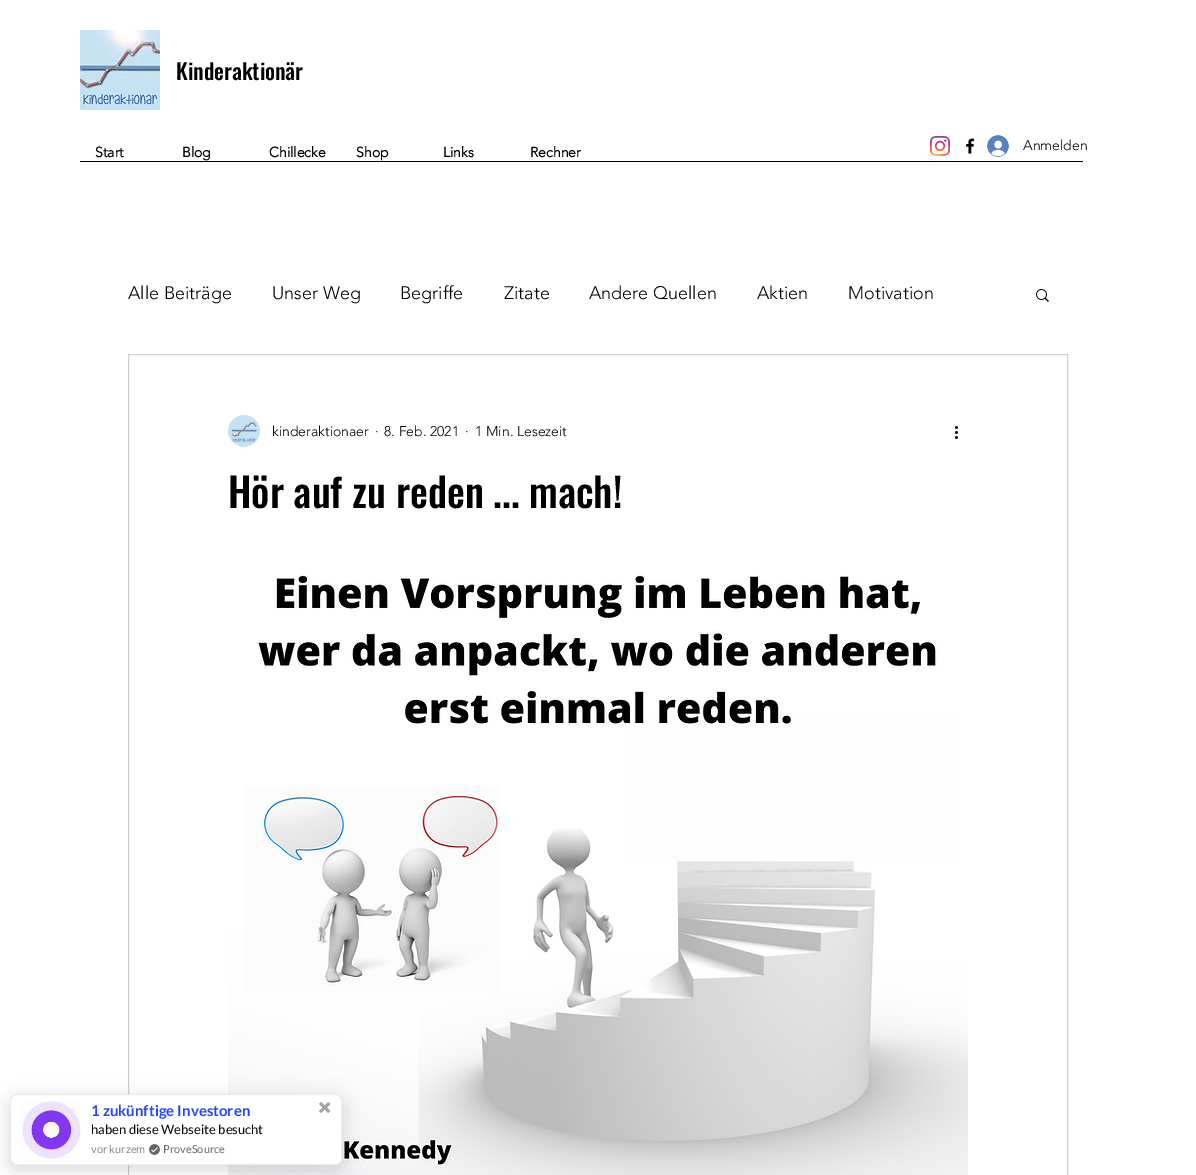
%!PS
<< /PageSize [1196 1175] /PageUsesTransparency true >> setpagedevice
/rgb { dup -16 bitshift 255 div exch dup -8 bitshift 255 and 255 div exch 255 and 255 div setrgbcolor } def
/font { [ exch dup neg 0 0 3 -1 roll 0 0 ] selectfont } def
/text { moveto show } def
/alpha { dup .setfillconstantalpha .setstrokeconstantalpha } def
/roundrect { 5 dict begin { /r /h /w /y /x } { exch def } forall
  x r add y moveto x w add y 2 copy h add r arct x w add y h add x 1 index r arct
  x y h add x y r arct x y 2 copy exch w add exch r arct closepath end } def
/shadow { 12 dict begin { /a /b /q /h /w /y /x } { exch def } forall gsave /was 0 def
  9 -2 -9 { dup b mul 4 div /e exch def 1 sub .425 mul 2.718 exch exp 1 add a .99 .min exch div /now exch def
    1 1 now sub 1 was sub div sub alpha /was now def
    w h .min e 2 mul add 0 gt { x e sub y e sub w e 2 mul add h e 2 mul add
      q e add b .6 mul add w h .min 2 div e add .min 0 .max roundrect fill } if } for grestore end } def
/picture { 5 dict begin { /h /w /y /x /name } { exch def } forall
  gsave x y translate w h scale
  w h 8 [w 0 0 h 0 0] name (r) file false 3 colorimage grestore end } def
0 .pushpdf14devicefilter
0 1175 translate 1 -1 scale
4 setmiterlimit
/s1 { /Oswald-Medium 22 font 16#000000 rgb } def
/s2 { /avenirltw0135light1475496-Bold 14 font 16#000000 rgb } def
/s3 { /avenirltw0135light1475496-Light 14 font 16#000000 rgb } def
/s4 { /avenirltw0135light1475496-Light 18 font 16#000000 rgb } def
/s5 { /Oswald-Medium 40 font 16#000000 rgb } def
/s6 { /Lato-Bold 15 font 16#2547F3 rgb } def
/s7 { /Lato-Regular 13 font 16#000000 rgb } def
/s8 { /Lato-Regular 11 font 16#888888 rgb } def
/s9 { /Lato-Regular 11 font 16#666666 rgb } def
16#FFFFFF rgb
0 0 1196 1175 rectfill
(pic1.raw) 80 30 80 80 picture
s1
(Kinderaktionär) 176 80 text
s2
(Start) 95 157 text
(Blog) 182 157 text
(Chillecke) 269 157 text
(Shop) 356 157 text
(Links) 443 157 text
(Rechner) 530 157 text
80 161 1003 1 rectfill
(pic2.raw) 930 136 20 20 picture
(pic3.raw) 966 138 9 16 picture
(pic4.raw) 987 135 22 22 picture
s3
(Anmelden) 1023 150 text
s4
(Alle Beiträge) 128 299 text
(Unser Weg) 272 299 text
(Begriffe) 400 299 text
(Zitate) 504 299 text
(Andere Quellen) 589 299 text
(Aktien) 757 299 text
(Motivation) 848 299 text
(pic5.raw) 1036 289 13 13 picture
16#CFCFCF rgb
128.5 354.5 939 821 rectstroke
(pic6.raw) 228 415 32 32 picture
s3
(kinderaktionaer) 272 436 text
(·) 375 436 text
(8. Feb. 2021) 384 436 text
(·) 465 436 text
(1 Min. Lesezeit) 475 436 text
(pic7.raw) 955 426 3 13 picture
s5
(Hör auf zu reden ... mach!) 228 508 text
(pic8.raw) 228 573 740 602 picture
10 1099 332 71 7 10 0.15 shadow
16#FFFFFF rgb
10.5 1094.5 331 70 6.5 roundrect gsave fill grestore
16#ECECEC rgb
stroke
(pic9.raw) 22 1101 59 58 picture
s6
(1 zukünftige Investoren) 91 1116 text
16#A3A3A3 rgb
321 1102 moveto 330.5 1111 lineto 328 1113 lineto 319 1104 lineto closepath fill
328 1102 moveto 330.5 1104 lineto 321 1113 lineto 319 1111 lineto closepath fill
s7
(haben diese Webseite besucht) 91 1134 text
s8
(vor kurzem) 91 1153 text
(pic10.raw) 149 1144 11 11 picture
s9
(ProveSource) 163 1153 text
.poppdf14devicefilter showpage
